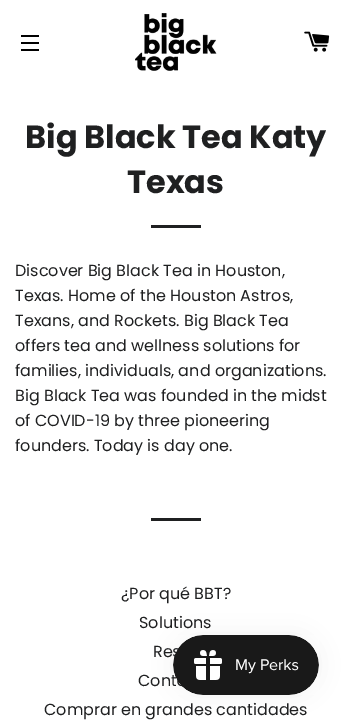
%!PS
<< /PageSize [351 727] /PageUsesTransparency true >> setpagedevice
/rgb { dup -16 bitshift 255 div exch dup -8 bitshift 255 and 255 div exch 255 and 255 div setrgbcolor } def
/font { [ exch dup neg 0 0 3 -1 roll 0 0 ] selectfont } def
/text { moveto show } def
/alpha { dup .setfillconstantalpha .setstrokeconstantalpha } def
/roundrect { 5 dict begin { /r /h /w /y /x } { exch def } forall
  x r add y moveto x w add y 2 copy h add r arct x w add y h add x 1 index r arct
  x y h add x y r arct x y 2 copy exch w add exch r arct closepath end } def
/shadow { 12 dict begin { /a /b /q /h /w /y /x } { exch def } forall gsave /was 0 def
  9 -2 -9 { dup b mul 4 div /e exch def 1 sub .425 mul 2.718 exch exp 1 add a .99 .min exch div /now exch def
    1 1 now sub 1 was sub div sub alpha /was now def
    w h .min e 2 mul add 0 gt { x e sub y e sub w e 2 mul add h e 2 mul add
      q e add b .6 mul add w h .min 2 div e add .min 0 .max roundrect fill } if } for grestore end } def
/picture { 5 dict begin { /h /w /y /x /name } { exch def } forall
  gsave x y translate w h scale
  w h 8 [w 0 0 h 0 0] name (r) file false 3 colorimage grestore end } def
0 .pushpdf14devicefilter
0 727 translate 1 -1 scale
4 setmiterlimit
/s1 { /Poppins-Bold 32 font 16#1F2021 rgb } def
/s2 { /Poppins-Regular 16 font 16#1F2021 rgb } def
16#FFFFFF rgb
0 0 351 727 rectfill
16#000000 rgb
21 35 18 2 rectfill
21 42 18 2 rectfill
21 49 18 2 rectfill
(pic1.raw) 135 13 82 58 picture
(pic2.raw) 304 31 26 21 picture
s1
(Big Black Tea Katy) 25 148 text
(Texas) 127 193 text
151 225 50 3 rectfill
s2
(Discover Big Black Tea in Houston,) 15 276 text
(Texas. Home of the Houston Astros,) 15 301 text
(Texans, and Rockets. Big Black Tea) 15 326 text
(offers tea and wellness solutions for) 15 351 text
(families, individuals, and organizations.) 15 376 text
(Big Black Tea was founded in the midst) 15 401 text
(of COVID-19 by three pioneering) 15 426 text
(founders. Today is day one.) 15 451 text
151 518 50 3 rectfill
(¿Por qué BBT?) 121 599 text
(Solutions) 139 628 text
(Re) 153 657 text
(Cont) 138 686 text
(Comprar en grandes cantidades) 44 715 text
16#000000 rgb
173 635 146 60 30 12.5 0.05 shadow
(pic3.raw) 173 635 146 60 picture
.poppdf14devicefilter showpage
